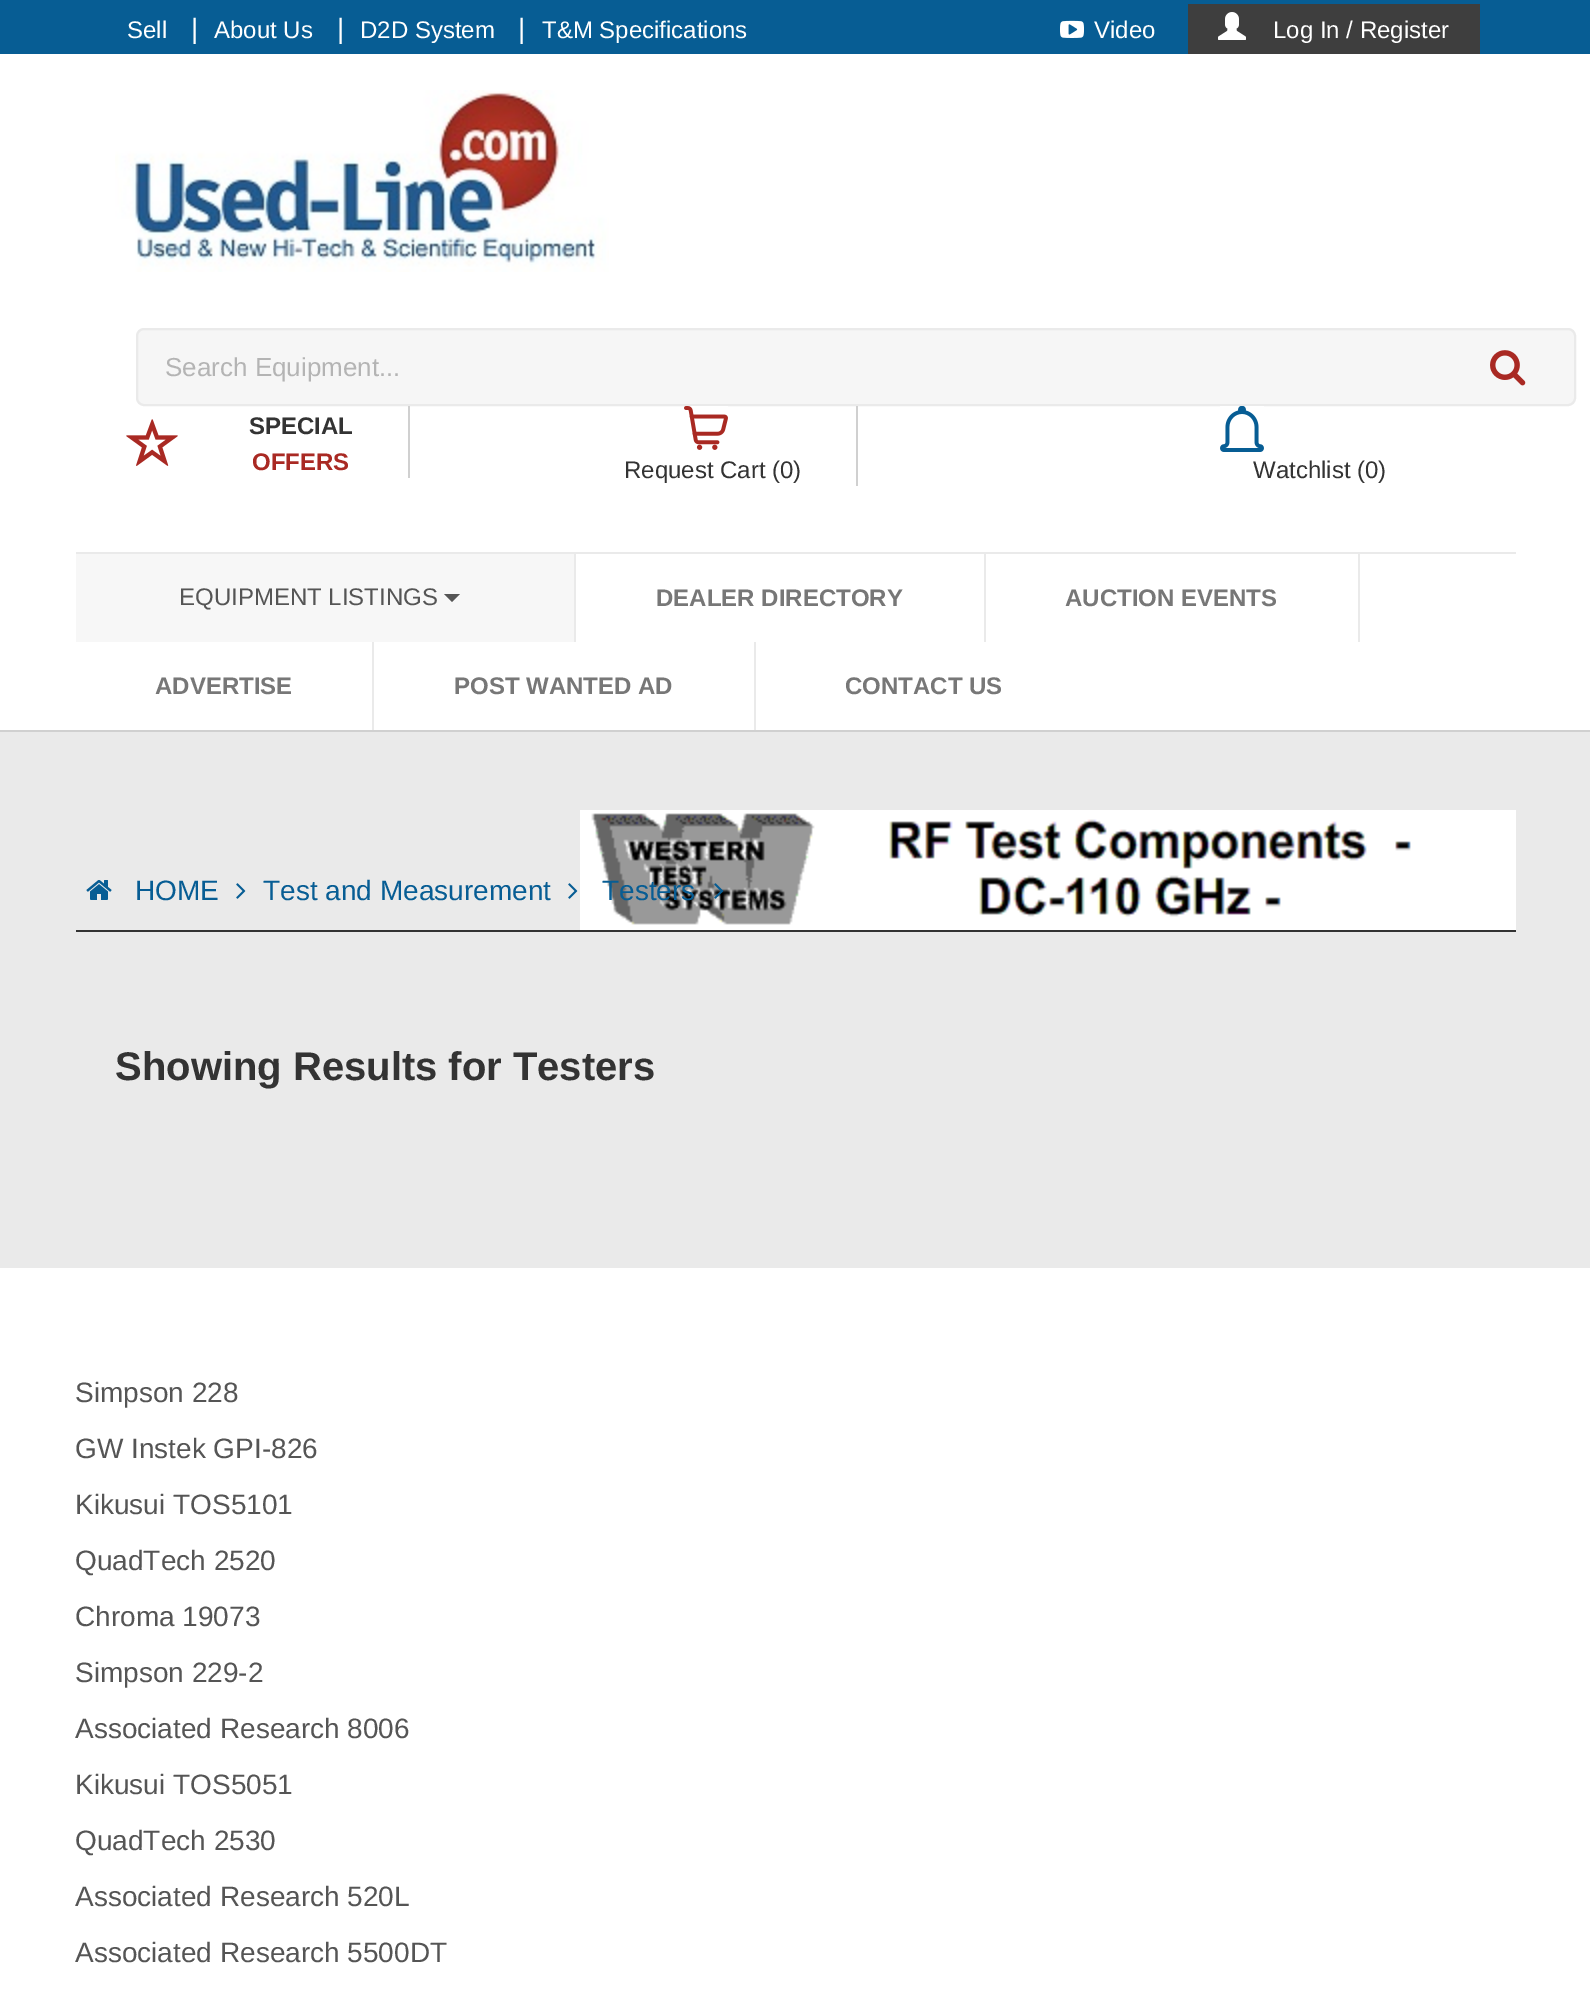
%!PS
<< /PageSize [1590 2011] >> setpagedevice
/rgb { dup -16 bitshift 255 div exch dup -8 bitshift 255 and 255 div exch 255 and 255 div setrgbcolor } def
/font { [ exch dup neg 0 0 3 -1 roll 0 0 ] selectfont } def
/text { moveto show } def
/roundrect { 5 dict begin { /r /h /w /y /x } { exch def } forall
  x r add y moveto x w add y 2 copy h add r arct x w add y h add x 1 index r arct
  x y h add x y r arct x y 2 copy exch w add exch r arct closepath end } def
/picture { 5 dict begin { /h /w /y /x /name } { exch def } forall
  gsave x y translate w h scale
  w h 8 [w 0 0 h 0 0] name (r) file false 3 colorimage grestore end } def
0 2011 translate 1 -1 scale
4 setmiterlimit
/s1 { /LiberationSans-Regular 24 font 16#FFFFFF rgb } def
/s2 { /LiberationSans-Regular 28 font 16#FFFFFF rgb } def
/s3 { /LiberationSans-Regular 26 font 16#B4B4B4 rgb } def
/s4 { /LiberationSans-Bold 24 font 16#333333 rgb } def
/s5 { /LiberationSans-Bold 24 font 16#A92923 rgb } def
/s6 { /LiberationSans-Regular 24 font 16#333333 rgb } def
/s7 { /LiberationSans-Regular 24 font 16#555555 rgb } def
/s8 { /LiberationSans-Bold 24 font 16#777777 rgb } def
/s9 { /LiberationSans-Regular 28 font 16#075D94 rgb } def
/s10 { /LiberationSans-Bold 40 font 16#333333 rgb } def
/s11 { /LiberationSans-Regular 28 font 16#555555 rgb } def
16#EAEAEA rgb
0 0 1590 2011 rectfill
16#FFFFFF rgb
0 54 1590 676 rectfill
16#D0D0D0 rgb
0 730 1590 2 rectfill
16#075D94 rgb
0 0 1590 54 rectfill
s1
(Sell) 127 38 text
s2
(|) 191 38 text
s1
(About Us) 214 38 text
s2
(|) 337 38 text
s1
(D2D System) 360 38 text
s2
(|) 518 38 text
s1
(T&M Specifications) 542 38 text
(pic1.raw) 1060 20 24 18 picture
(Video) 1094 38 text
16#3E3E3E rgb
1188 4 292 50 rectfill
(pic2.raw) 1218 12 28 28 picture
s1
(Log In / Register) 1273 38 text
(pic3.raw) 115 90 494 182 picture
16#F6F6F6 rgb
137 329 1438 76 7 roundrect gsave fill grestore
16#EAEAEA rgb
2 setlinewidth
stroke
s3
(Search Equipment...) 165 376 text
(pic4.raw) 1490 350 36 36 picture
(pic5.raw) 126 419 52 47 picture
16#D0D0D0 rgb
408 406 2 72 rectfill
s4
(SPECIAL) 249 434 text
s5
(OFFERS) 252 470 text
16#D0D0D0 rgb
856 406 2 80 rectfill
(pic6.raw) 684 406 44 44 picture
s6
(Request Cart \(0\)) 624 478 text
(pic7.raw) 1220 406 44 46 picture
(Watchlist \(0\)) 1253 478 text
16#EAEAEA rgb
76 552 1440 2 rectfill
16#F7F7F7 rgb
76 554 498 88 rectfill
16#EAEAEA rgb
574 554 2 88 rectfill
s7
(EQUIPMENT LISTINGS) 179 605 text
444 594 moveto 460 594 lineto 452 602 lineto closepath fill
16#EAEAEA rgb
984 554 2 88 rectfill
s8
(DEALER DIRECTORY) 656 606 text
16#EAEAEA rgb
1358 554 2 88 rectfill
s8
(AUCTION EVENTS) 1065 606 text
16#EAEAEA rgb
372 642 2 88 rectfill
s8
(ADVERTISE) 155 694 text
16#EAEAEA rgb
754 642 2 88 rectfill
s8
(POST WANTED AD) 454 694 text
(CONTACT US) 845 694 text
16#333333 rgb
76 930 1440 2 rectfill
(pic8.raw) 86 880 26 20 picture
s9
(HOME) 135 900 text
(pic9.raw) 236 883 10 16 picture
(Test and Measurement) 263 900 text
(pic9.raw) 568 883 10 16 picture
(pic10.raw) 580 810 936 120 picture
(Testers) 602 900 text
(pic11.raw) 714 883 10 16 picture
s10
(Showing Results for Testers) 115 1080 text
16#FFFFFF rgb
0 1268 1590 743 rectfill
s11
(Simpson 228) 75 1402 text
(GW Instek GPI-826) 75 1458 text
(Kikusui TOS5101) 75 1514 text
(QuadTech 2520) 75 1570 text
(Chroma 19073) 75 1626 text
(Simpson 229-2) 75 1682 text
(Associated Research 8006) 75 1738 text
(Kikusui TOS5051) 75 1794 text
(QuadTech 2530) 75 1850 text
(Associated Research 520L) 75 1906 text
(Associated Research 5500DT) 75 1962 text
showpage
